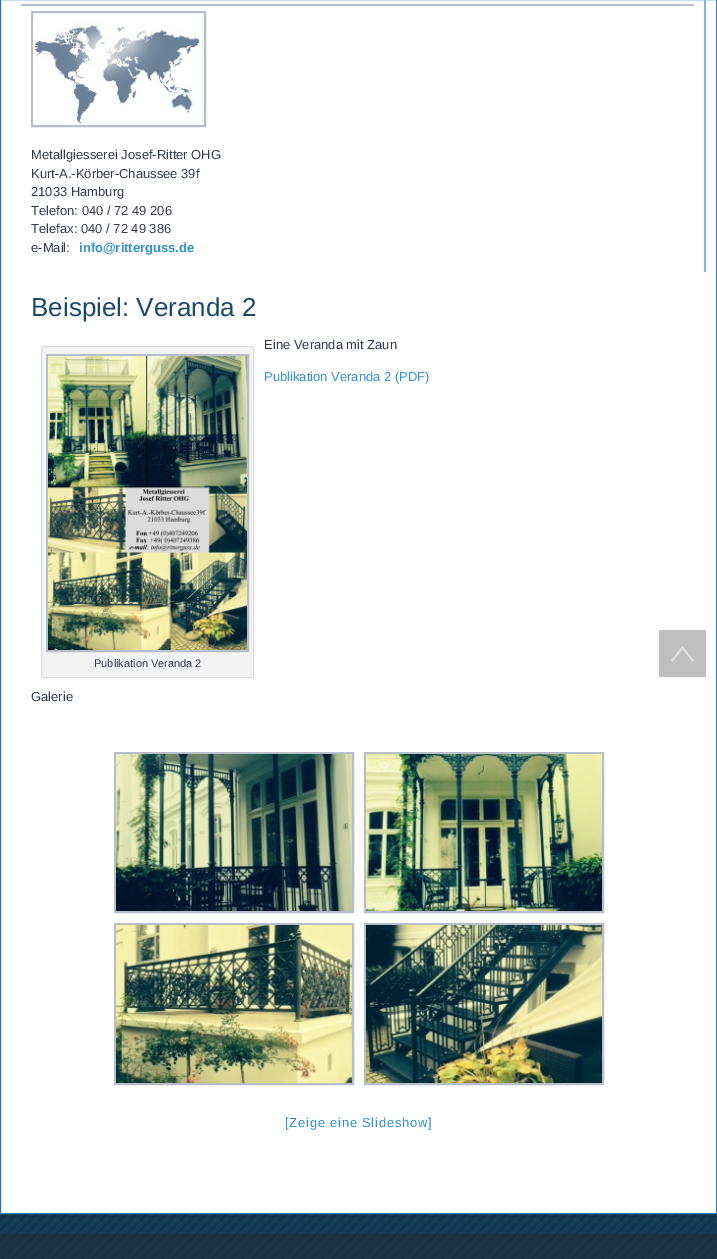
%!PS
<< /PageSize [717 1259] /PageUsesTransparency true >> setpagedevice
/rgb { dup -16 bitshift 255 div exch dup -8 bitshift 255 and 255 div exch 255 and 255 div setrgbcolor } def
/font { [ exch dup neg 0 0 3 -1 roll 0 0 ] selectfont } def
/text { moveto show } def
/alpha { dup .setfillconstantalpha .setstrokeconstantalpha } def
/roundrect { 5 dict begin { /r /h /w /y /x } { exch def } forall
  x r add y moveto x w add y 2 copy h add r arct x w add y h add x 1 index r arct
  x y h add x y r arct x y 2 copy exch w add exch r arct closepath end } def
/shadow { 12 dict begin { /a /b /q /h /w /y /x } { exch def } forall gsave /was 0 def
  9 -2 -9 { dup b mul 4 div /e exch def 1 sub .425 mul 2.718 exch exp 1 add a .99 .min exch div /now exch def
    1 1 now sub 1 was sub div sub alpha /was now def
    w h .min e 2 mul add 0 gt { x e sub y e sub w e 2 mul add h e 2 mul add
      q e add b .6 mul add w h .min 2 div e add .min 0 .max roundrect fill } if } for grestore end } def
/picture { 5 dict begin { /h /w /y /x /name } { exch def } forall
  gsave x y translate w h scale
  w h 8 [w 0 0 h 0 0] name (r) file false 3 colorimage grestore end } def
0 .pushpdf14devicefilter
0 1259 translate 1 -1 scale
4 setmiterlimit
/s1 { /LiberationSans-Regular 13 font 16#303A4F rgb } def
/s2 { /LiberationSans-Bold 13 font 16#3292CD rgb } def
/s3 { /LiberationSans-Regular 26 font 16#194967 rgb } def
/s4 { /LiberationSans-Regular 13 font 16#3292CD rgb } def
/s5 { /LiberationSans-Regular 11 font 16#303A4F rgb } def
16#FFFFFF rgb
0 0 717 1259 rectfill
(pic1.raw) 0 1214 717 45 picture
16#000000 rgb
-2 -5 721 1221 0 1.5 0.15 shadow
16#FFFFFF rgb
0.5 -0.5 moveto 716.5 -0.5 lineto 716.5 1213.5 lineto 0.5 1213.5 lineto closepath gsave fill grestore
16#2B7DB1 rgb
stroke
16#78B7DE rgb
704 0 2 272 rectfill
16#B6BFC9 rgb
21 4 673 2 rectfill
2 setlinewidth
32 12 173 114 rectstroke
(pic2.raw) 33 21 171 103 picture
s1
(Metallgiesserei Josef-Ritter OHG) 31 159 text
(Kurt-A.-Körber-Chaussee 39f) 31 178 text
(21033 Hamburg) 31 196 text
(Telefon: 040 / 72 49 206) 31 215 text
(Telefax: 040 / 72 49 386) 31 233 text
(e-Mail:) 31 252 text
s2
(info@ritterguss.de) 79 252 text
s3
(Beispiel: Veranda 2) 31 316 text
s1
(Eine Veranda mit Zaun) 264 349 text
s4
(Publikation Veranda 2 \(PDF\)) 264 381 text
16#F3F3F3 rgb
41.5 346.5 moveto 253.5 346.5 lineto 253.5 677.5 lineto 41.5 677.5 lineto closepath gsave fill grestore
16#DDDDDD rgb
1 setlinewidth
stroke
16#B6BFC9 rgb
2 setlinewidth
47 355 201 296 rectstroke
(pic3.raw) 48 356 199 294 picture
s5
(Publikation Veranda 2) 94 667 text
s1
(Galerie) 31 701 text
16#B6BFC9 rgb
115 753 238 159 rectstroke
(pic4.raw) 116 754 236 157 picture
365 753 238 159 rectstroke
(pic5.raw) 366 754 236 157 picture
115 924 238 160 rectstroke
(pic6.raw) 116 925 236 158 picture
365 924 238 160 rectstroke
(pic7.raw) 366 925 236 158 picture
16#3292CD rgb
285 1127 moveto 0.75 0 ([Zeige eine Slideshow]) ashow
16#BFBFBF rgb
659 630 47 47 rectfill
16#DFDFDF rgb
682.5 646 moveto 694 660.5 lineto 692.5 662 lineto 682.5 649 lineto 672.5 662 lineto 671 660.5 lineto closepath fill
0.5 alpha
16#232939 rgb
0 1234 717 25 rectfill
.poppdf14devicefilter showpage
